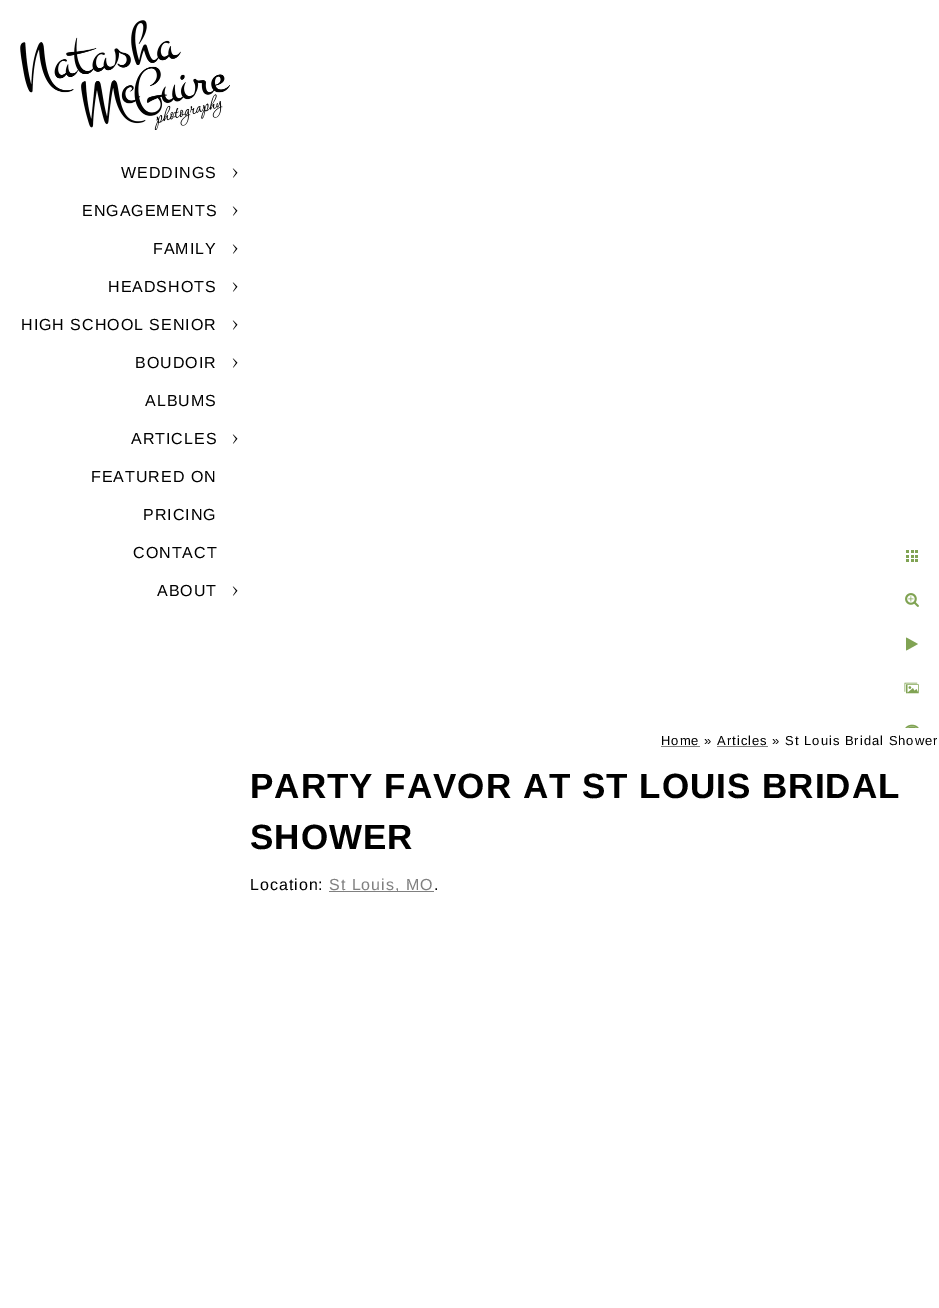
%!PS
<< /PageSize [939 1308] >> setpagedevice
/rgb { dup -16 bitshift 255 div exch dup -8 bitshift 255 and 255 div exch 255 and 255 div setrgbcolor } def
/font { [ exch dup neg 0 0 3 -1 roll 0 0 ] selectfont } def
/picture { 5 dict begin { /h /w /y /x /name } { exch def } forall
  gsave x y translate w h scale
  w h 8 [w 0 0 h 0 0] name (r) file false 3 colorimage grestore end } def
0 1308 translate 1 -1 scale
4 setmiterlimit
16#FFFFFF rgb
0 0 939 1308 rectfill
(pic1.raw) 20 20 210 110 picture
/LiberationSans-Regular 16 font
16#000000 rgb
121 178 moveto 1 0 (WEDDINGS) ashow
(pic2.raw) 232 168 6 10 picture
82 216 moveto 1 0 (ENGAGEMENTS) ashow
(pic2.raw) 232 206 6 10 picture
153 254 moveto 1 0 (FAMILY) ashow
(pic2.raw) 232 244 6 10 picture
108 292 moveto 1 0 (HEADSHOTS) ashow
(pic2.raw) 232 282 6 10 picture
21 330 moveto 1 0 (HIGH SCHOOL SENIOR) ashow
(pic2.raw) 232 320 6 10 picture
135 368 moveto 1 0 (BOUDOIR) ashow
(pic2.raw) 232 358 6 10 picture
145 406 moveto 1 0 (ALBUMS) ashow
131 444 moveto 1 0 (ARTICLES) ashow
(pic2.raw) 232 434 6 10 picture
91 482 moveto 1 0 (FEATURED ON) ashow
143 520 moveto 1 0 (PRICING) ashow
133 558 moveto 1 0 (CONTACT) ashow
157 596 moveto 1 0 (ABOUT) ashow
(pic2.raw) 232 586 6 10 picture
(pic3.raw) 906 550 12 12 picture
(pic4.raw) 905 593 14 14 picture
(pic5.raw) 906 637 12 14 picture
(pic6.raw) 904 682 15 12 picture
(pic7.raw) 905 724 14 4 picture
/LiberationSans-Regular 13 font
661 745 moveto 1 0 (Home » Articles » St Louis Bridal Shower) ashow
16#808080 rgb
661 746 39 1 rectfill
717 746 51 1 rectfill
/LiberationSans-Bold 35 font
16#000000 rgb
250 798 moveto 1 0 (PARTY FAVOR AT ST LOUIS BRIDAL) ashow
250 849 moveto 1 0 (SHOWER) ashow
/LiberationSans-Regular 16 font
250 890 moveto 1 0 (Location:) ashow
16#808080 rgb
329 891 105 1 rectfill
329 890 moveto 1 0 (St Louis, MO) ashow
16#000000 rgb
434 890 moveto 1 0 (.) ashow
showpage
